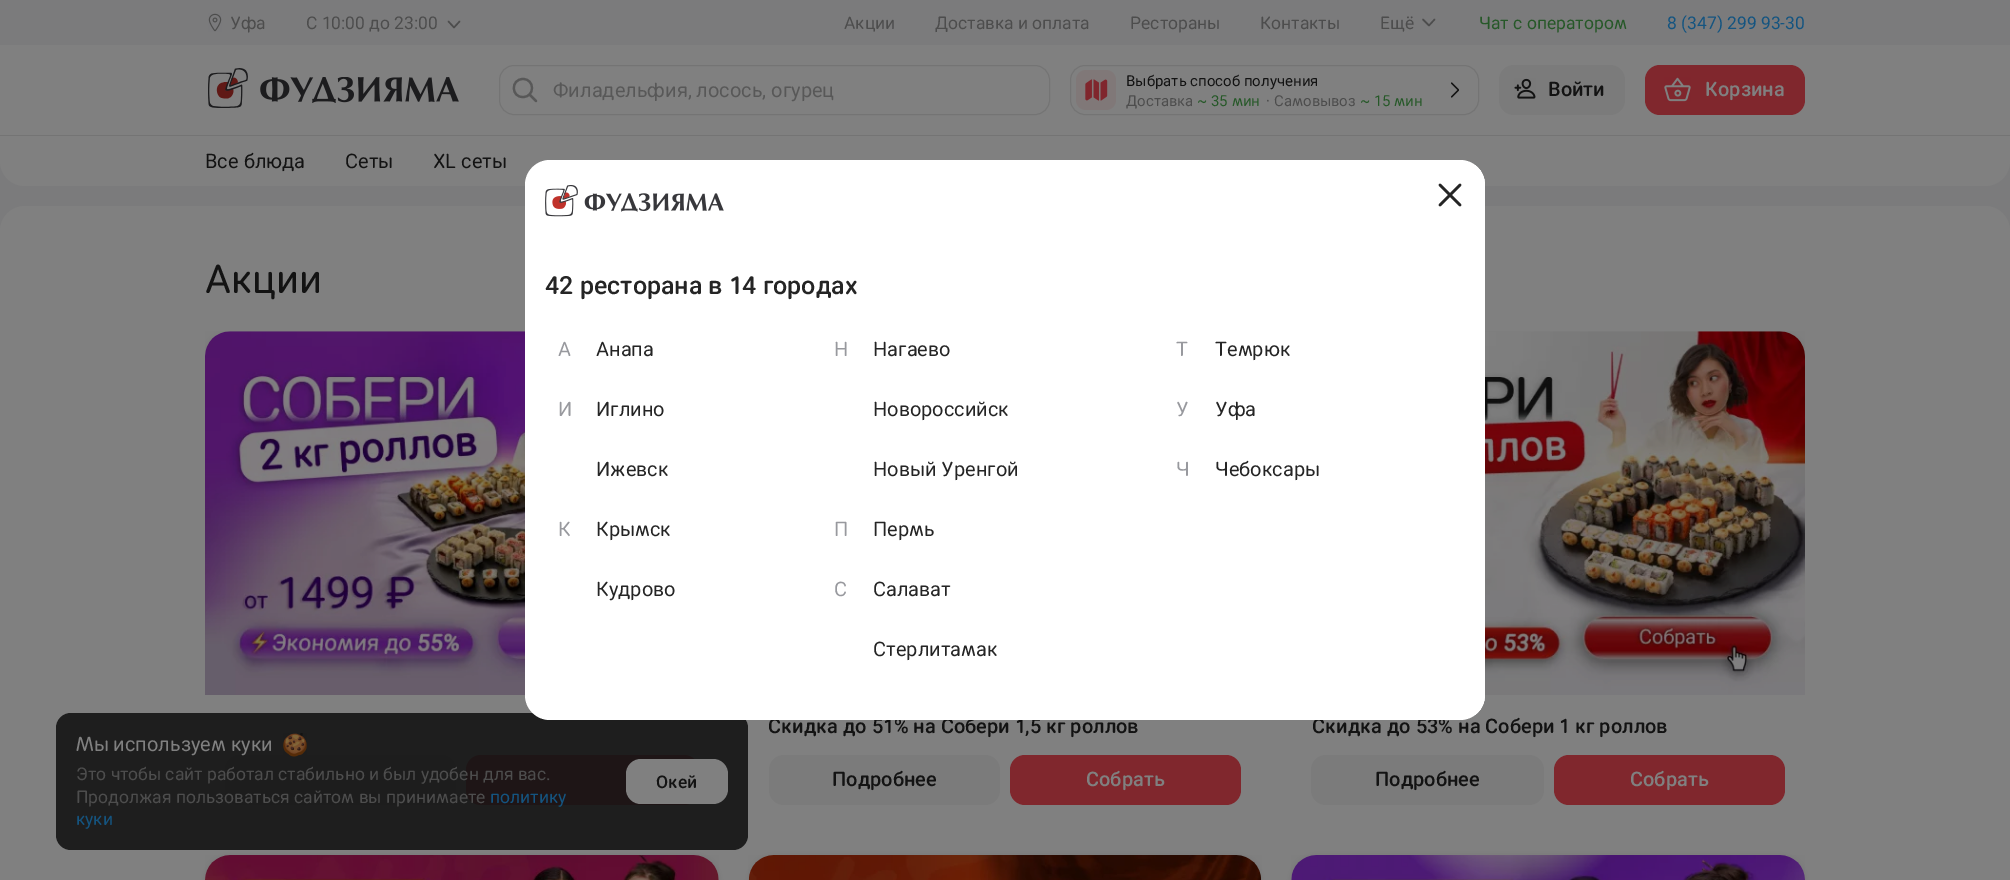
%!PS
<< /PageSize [2010 880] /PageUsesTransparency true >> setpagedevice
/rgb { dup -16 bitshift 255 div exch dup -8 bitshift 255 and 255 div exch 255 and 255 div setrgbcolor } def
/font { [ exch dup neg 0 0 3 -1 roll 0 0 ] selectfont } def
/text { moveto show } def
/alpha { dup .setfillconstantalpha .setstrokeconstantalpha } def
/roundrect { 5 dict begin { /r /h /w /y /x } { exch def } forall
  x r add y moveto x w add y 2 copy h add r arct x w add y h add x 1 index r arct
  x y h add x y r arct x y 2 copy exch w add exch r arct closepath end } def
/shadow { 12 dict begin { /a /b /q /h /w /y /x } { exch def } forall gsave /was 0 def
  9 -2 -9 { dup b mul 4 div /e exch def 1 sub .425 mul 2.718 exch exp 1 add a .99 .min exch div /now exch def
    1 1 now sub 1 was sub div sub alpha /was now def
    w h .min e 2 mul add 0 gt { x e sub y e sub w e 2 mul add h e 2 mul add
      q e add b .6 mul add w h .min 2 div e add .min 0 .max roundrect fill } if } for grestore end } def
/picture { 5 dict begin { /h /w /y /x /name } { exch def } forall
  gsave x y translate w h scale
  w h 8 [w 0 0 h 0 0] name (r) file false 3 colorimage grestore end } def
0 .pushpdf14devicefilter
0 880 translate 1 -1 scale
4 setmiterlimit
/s1 { /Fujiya-Regular 17.5 font 16#4D4D4D rgb } def
/s2 { /Fujiya-Regular 17.5 font 16#265828 rgb } def
/s3 { /Fujiya-Regular 17.5 font 16#145480 rgb } def
/s4 { /Fujiya-Regular 20 font 16#585858 rgb } def
/s5 { /Fujiya-Regular 15 font 16#131313 rgb } def
/s6 { /Fujiya-Regular 15 font 16#4D4D4D rgb } def
/s7 { /Fujiya-Regular 15 font 16#265828 rgb } def
/s8 { /Fujiya-Medium 20 font 16#131313 rgb } def
/s9 { /Fujiya-Medium 20 font 16#808080 rgb } def
/s10 { /Fujiya-Regular 20 font 16#131313 rgb } def
/s11 { /Fujiya-Regular 40 font 16#131313 rgb } def
/s12 { /Fujiya-Regular 20 font 16#808080 rgb } def
/s13 { /Fujiya-Medium 17.5 font 16#131313 rgb } def
/s14 { /Fujiya-Medium 25 font 16#252525 rgb } def
/s15 { /Fujiya-Regular 20 font 16#98999E rgb } def
/s16 { /Fujiya-Regular 20 font 16#252525 rgb } def
16#7B7B7C rgb
0 0 2010 880 rectfill
16#808080 rgb
0 0 moveto 2010 0 lineto 2010 161 lineto 2010 175 1999 186 1985 186 curveto 25 186 lineto 11 186 0 175 0 161 curveto closepath fill
16#7B7B7C rgb
0 0 2010 45 rectfill
(pic1.raw) 208 13 14 19 picture
s1
(Уфа) 230 29 text
(С 10:00 до 23:00) 306 29 text
1.5 setlinewidth
1 setlinecap
1 setlinejoin
459.5 21.5 moveto 454 27.5 lineto 448.5 21.5 lineto stroke
(Акции) 844 29 text
(Доставка и оплата) 935 29 text
(Рестораны) 1130 29 text
(Контакты) 1260 29 text
(Ещё) 1380 29 text
1423 19.5 moveto 1429 25.5 lineto 1434.5 19.5 lineto stroke
s2
(Чат с оператором) 1479 29 text
s3
(8 \(347\) 299 93-30) 1667 29 text
(pic2.raw) 208 68 40 40 picture
(pic3.raw) 260 77 199 26 picture
16#747474 rgb
1 setlinewidth
0 setlinecap
0 setlinejoin
499.5 65.5 550 49 14.5 roundrect stroke
16#585858 rgb
2.2 setlinewidth
1 setlinecap
530 95 moveto 536 101 lineto 523 79 moveto 510.5 79 511 97.5 523 97 curveto 535 97 535 79 523 79 curveto closepath stroke
s4
(Филадельфия, лосось, огурец) 553 97 text
16#747474 rgb
1 setlinewidth
0 setlinecap
1070.5 65.5 408 49 14.5 roundrect stroke
16#807878 rgb
1076 70 40 40 10 roundrect fill
(pic4.raw) 1085 79 23 22 picture
s5
(Выбрать способ получения) 1126 86 text
s6
(Доставка) 1126 106 text
s7
(~ 35 мин) 1197 106 text
s6
(·) 1266 106 text
(Самовывоз) 1274 106 text
s7
(~ 15 мин) 1360 106 text
16#131313 rgb
1.2 setlinewidth
1 setlinecap
1 setlinejoin
1451.5 83 moveto 1458.5 90 lineto 1451.5 97 lineto stroke
16#7B7B7B rgb
1499 65 126 50 15 roundrect fill
(pic5.raw) 1514 78 22 21 picture
s8
(Войти) 1548 96 text
16#80272D rgb
1645 65 160 50 15 roundrect fill
(pic6.raw) 1664 77 27 25 picture
s9
(Корзина) 1705 96 text
16#747474 rgb
0 135 2010 1 rectfill
s10
(Все блюда) 205 168 text
(Сеты) 345 168 text
(XL сеты) 433 168 text
16#808080 rgb
0 206 2010 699 25 roundrect fill
s11
(Акции) 205 293 text
(pic7.raw) 205 331 320 364 picture
16#7B7B7B rgb
225 755 231 50 15 roundrect fill
16#80272D rgb
466 755 233 50 15 roundrect fill
s8
(Скидка до 51% на Собери 1,5 кг роллов) 768 733 text
16#7B7B7B rgb
769 755 231 50 15 roundrect fill
s8
(Подробнее) 832 786 text
16#80272D rgb
1010 755 231 50 15 roundrect fill
s9
(Собрать) 1086 786 text
(pic8.raw) 1485 331 320 364 picture
s8
(Скидка до 53% на Собери 1 кг роллов) 1312 733 text
16#7B7B7B rgb
1311 755 233 50 15 roundrect fill
s8
(Подробнее) 1375 786 text
16#80272D rgb
1554 755 231 50 15 roundrect fill
s9
(Собрать) 1630 786 text
16#111315 rgb
205 856 514 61 25 4 0.1 shadow
(pic9.raw) 205 855 514 25 picture
749 856 512 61 25 4 0.1 shadow
(pic10.raw) 748 855 514 25 picture
1291 856 514 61 25 4 0.1 shadow
(pic11.raw) 1291 855 514 25 picture
0.9 alpha
16#131313 rgb
56 713 692 137 15 roundrect fill
1 alpha
s12
(Мы используем куки) 76 751 text
(pic12.raw) 283 733 24 24 picture
s1
(Это чтобы сайт работал стабильно и был удобен для вас.) 76 780 text
(Продолжая пользоваться сайтом вы принимаете) 76 803 text
s3
(политику) 490 803 text
(куки) 76 825 text
16#808080 rgb
626 759 102 45 15 roundrect fill
s13
(Окей) 656 788 text
gsave
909 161 moveto 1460 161 lineto 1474 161 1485 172 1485 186 curveto 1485 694 lineto 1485 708 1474 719 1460 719 curveto 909 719 lineto closepath clip newpath
16#F6F7F9 rgb
908 160 578 560 0 6 1 shadow
grestore
16#FFFFFF rgb
525 160 960 560 25 roundrect fill
16#252525 rgb
2.5 setlinewidth
1460 205 moveto 1440 185 lineto 1460 185 moveto 1440 205 lineto stroke
(pic13.raw) 545 185 179 32 picture
s14
(42 ресторана в 14 городах) 545 294 text
s15
(А) 558 356 text
s16
(Анапа) 596 356 text
s15
(Н) 834 356 text
s16
(Нагаево) 873 356 text
(Новороссийск) 873 416 text
(Новый Уренгой) 873 476 text
s15
(Т) 1176 356 text
s16
(Темрюк) 1215 356 text
s15
(И) 558 416 text
s16
(Иглино) 596 416 text
(Ижевск) 596 476 text
s15
(У) 1176 416 text
s16
(Уфа) 1215 416 text
s15
(Ч) 1176 476 text
s16
(Чебоксары) 1215 476 text
s15
(К) 558 536 text
s16
(Крымск) 596 536 text
(Кудрово) 596 596 text
s15
(П) 834 536 text
s16
(Пермь) 873 536 text
s15
(С) 834 596 text
s16
(Салават) 873 596 text
(Стерлитамак) 873 656 text
.poppdf14devicefilter showpage
